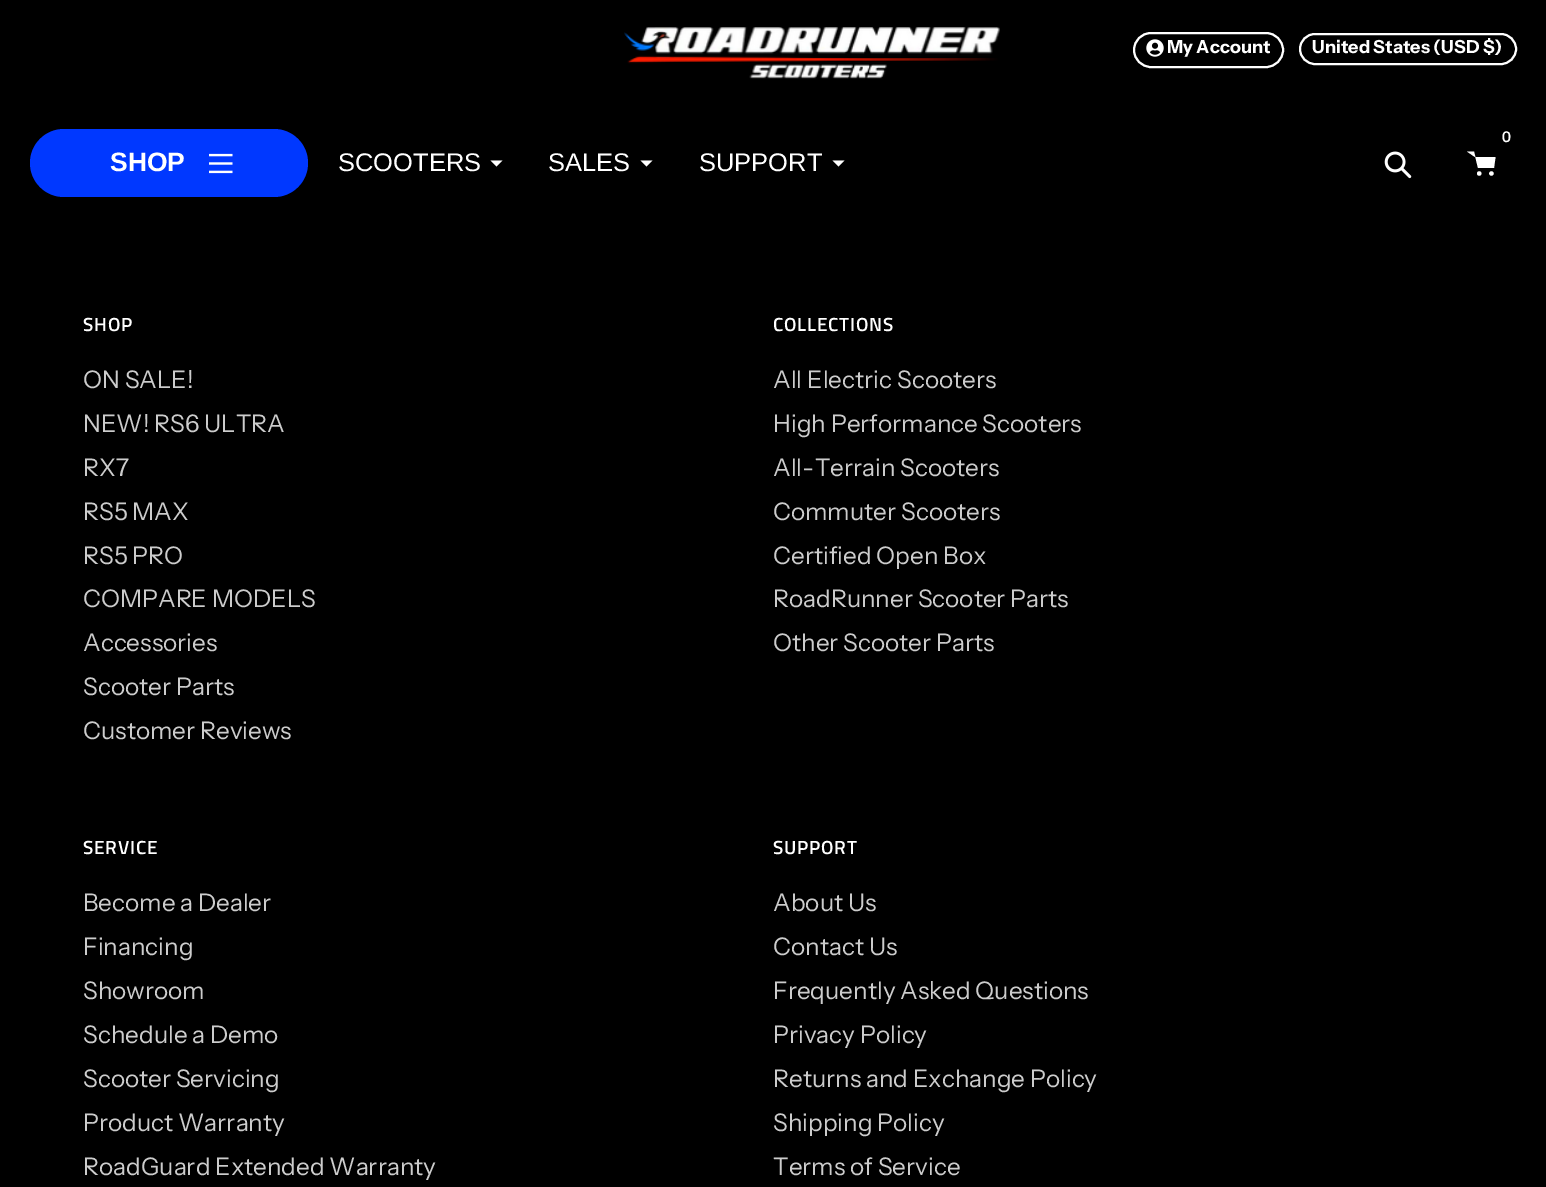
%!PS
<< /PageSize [1546 1187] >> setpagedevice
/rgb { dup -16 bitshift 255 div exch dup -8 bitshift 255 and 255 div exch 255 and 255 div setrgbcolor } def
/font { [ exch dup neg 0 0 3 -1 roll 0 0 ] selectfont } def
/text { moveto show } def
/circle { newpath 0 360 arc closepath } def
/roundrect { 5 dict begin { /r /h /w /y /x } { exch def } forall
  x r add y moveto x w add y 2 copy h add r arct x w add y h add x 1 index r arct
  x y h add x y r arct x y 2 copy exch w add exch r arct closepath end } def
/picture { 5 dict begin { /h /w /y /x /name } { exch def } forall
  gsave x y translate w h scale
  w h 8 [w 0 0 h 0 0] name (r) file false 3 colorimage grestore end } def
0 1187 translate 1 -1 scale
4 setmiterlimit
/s1 { /InstrumentSans-Bold 18 font 16#FFFFFF rgb } def
/s2 { /TitilliumWeb-SemiBold 16 font 16#FFFFFF rgb } def
/s3 { /LiberationSans-Bold 26.5 font 16#FFFFFF rgb } def
/s4 { /LiberationSans-Regular 25.5 font 16#FFFFFF rgb } def
/s5 { /InstrumentSans-Regular 24.25 font 16#CCCCCC rgb } def
16#000000 rgb
0 0 1546 1187 rectfill
(pic1.raw) 624 27 376 52 picture
16#FFFFFF rgb
2 setlinewidth
1134 33 149 34 17 roundrect stroke
(pic2.raw) 1146 39 18 18 picture
s1
(My Account) 1167 53 text
1300 34 216 30 15 roundrect stroke
(United States \(USD $\)) 1312 53 text
s2
(0) 1502 142 text
1479.2 173.5 2.2 circle fill
1491.4 173.5 2.2 circle fill
1475 157 moveto 1495.5 157 lineto 1494 168 lineto 1478 168 lineto 1474 151.5 lineto 1467 151.5 lineto eofill
(pic3.raw) 1384 151 28 28 picture
16#0038FF rgb
30 129 278 68 34 roundrect fill
s3
(SHOP) 110 171 text
(pic4.raw) 209 153 24 21 picture
s4
(SCOOTERS) 338 171 text
502.5 160.5 moveto 496.5 166.5 lineto 490.5 160.5 lineto fill
(SALES) 548 171 text
652.5 160.5 moveto 646.5 166.5 lineto 640.5 160.5 lineto fill
(SUPPORT) 699 171 text
844.5 160.5 moveto 838.5 166.5 lineto 832.5 160.5 lineto fill
/TitilliumWeb-SemiBold 19 font
83 331 moveto 0.75 0 (SHOP) ashow
s5
(ON SALE!) 83 388 text
(NEW! RS6 ULTRA) 83 432 text
(RX7) 83 476 text
(RS5 MAX) 83 520 text
(RS5 PRO) 83 564 text
(COMPARE MODELS) 83 607 text
(Accessories) 83 651 text
(Scooter Parts) 83 695 text
(Customer Reviews) 83 739 text
/TitilliumWeb-SemiBold 19 font
16#FFFFFF rgb
773 331 moveto 0.75 0 (COLLECTIONS) ashow
s5
(All Electric Scooters) 773 388 text
(High Performance Scooters) 773 432 text
(All-Terrain Scooters) 773 476 text
(Commuter Scooters) 773 520 text
(Certified Open Box) 773 564 text
(RoadRunner Scooter Parts) 773 607 text
(Other Scooter Parts) 773 651 text
/TitilliumWeb-SemiBold 19 font
16#FFFFFF rgb
83 854 moveto 0.75 0 (SERVICE) ashow
s5
(Become a Dealer) 83 911 text
(Financing) 83 955 text
(Showroom) 83 999 text
(Schedule a Demo) 83 1043 text
(Scooter Servicing) 83 1087 text
(Product Warranty) 83 1131 text
(RoadGuard Extended Warranty) 83 1175 text
/TitilliumWeb-SemiBold 19 font
16#FFFFFF rgb
773 854 moveto 0.75 0 (SUPPORT) ashow
s5
(About Us) 773 911 text
(Contact Us) 773 955 text
(Frequently Asked Questions) 773 999 text
(Privacy Policy) 773 1043 text
(Returns and Exchange Policy) 773 1087 text
(Shipping Policy) 773 1131 text
(Terms of Service) 773 1175 text
showpage
